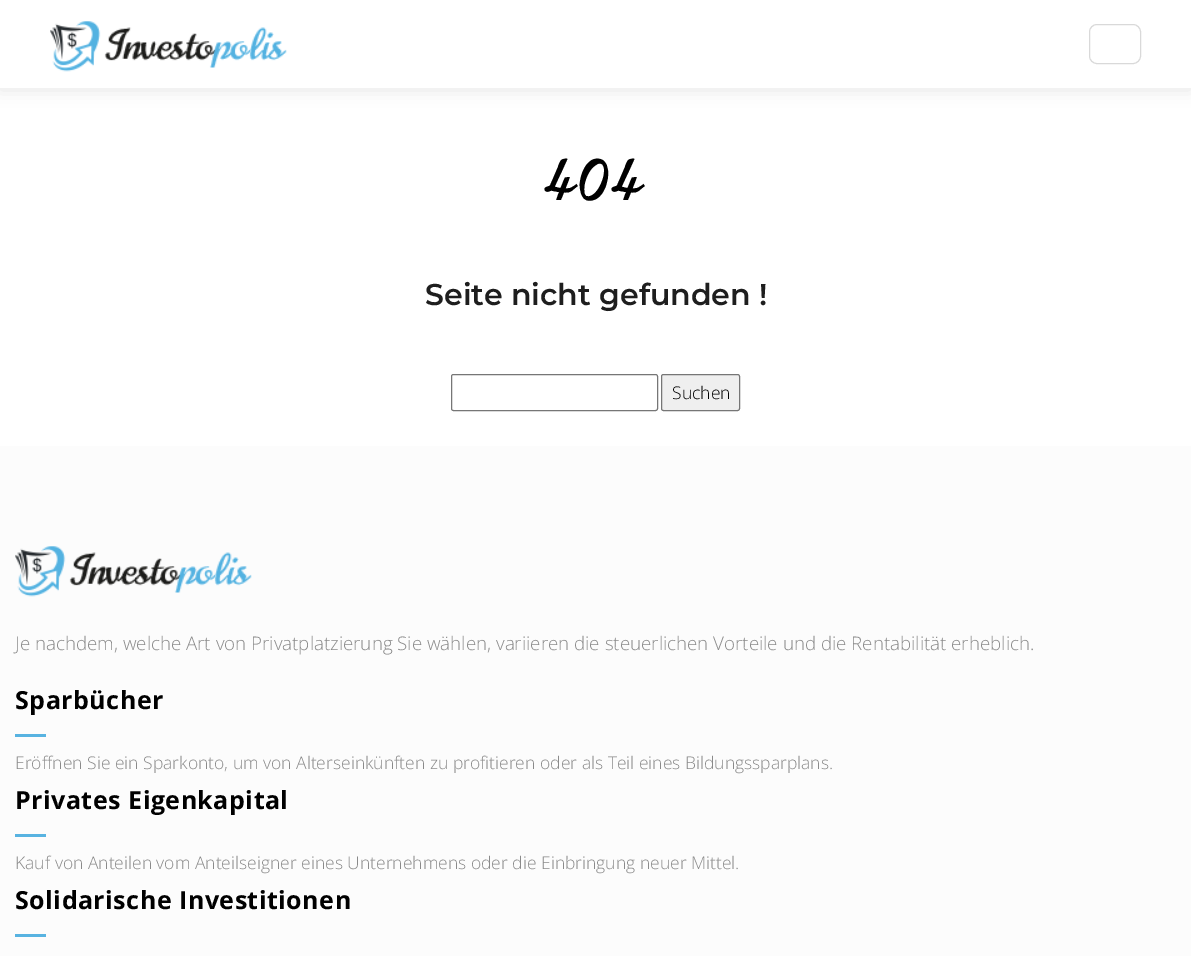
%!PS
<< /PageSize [1191 956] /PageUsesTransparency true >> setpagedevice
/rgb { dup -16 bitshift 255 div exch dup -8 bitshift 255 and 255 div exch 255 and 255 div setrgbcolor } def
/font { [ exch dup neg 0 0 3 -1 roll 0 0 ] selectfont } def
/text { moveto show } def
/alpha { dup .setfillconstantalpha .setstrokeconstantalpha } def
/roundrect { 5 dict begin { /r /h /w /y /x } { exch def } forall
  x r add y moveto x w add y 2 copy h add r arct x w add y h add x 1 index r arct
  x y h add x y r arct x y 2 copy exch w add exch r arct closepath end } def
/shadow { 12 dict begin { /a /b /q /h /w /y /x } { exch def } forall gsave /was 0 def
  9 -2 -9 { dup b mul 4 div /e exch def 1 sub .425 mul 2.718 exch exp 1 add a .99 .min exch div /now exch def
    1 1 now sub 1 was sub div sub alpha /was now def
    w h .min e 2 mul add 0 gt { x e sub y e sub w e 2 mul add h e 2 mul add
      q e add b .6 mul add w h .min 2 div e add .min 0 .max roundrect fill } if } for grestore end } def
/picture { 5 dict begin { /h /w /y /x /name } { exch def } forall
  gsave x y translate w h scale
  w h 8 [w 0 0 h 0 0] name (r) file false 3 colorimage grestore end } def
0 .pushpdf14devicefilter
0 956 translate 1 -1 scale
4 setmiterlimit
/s1 { /Norican-Regular 56 font 16#000000 rgb } def
/s2 { /Montserrat-Thin 30 font 16#1E1E1E rgb } def
/s3 { /OpenSans-Light 17.5 font 16#000000 rgb } def
/s4 { /OpenSans-Light 18.75 font 16#8A8A8A rgb } def
/s5 { /OpenSans-Light 17.5 font 16#8A8A8A rgb } def
16#FFFFFF rgb
0 0 1191 956 rectfill
16#000000 rgb
0 3 1191 87 0 8 0.1 shadow
16#FFFFFF rgb
0 0 1191 88 rectfill
(pic1.raw) 50 21 237 51 picture
16#D9D9D9 rgb
1089.5 24.5 51 39 7.5 roundrect stroke
s1
(404) 545 200 text
s2
(Seite nicht gefunden !) 425 305 text
16#767676 rgb
451.5 374.5 206 36 2 roundrect stroke
16#EFEFEF rgb
661.5 374.5 78 36 2 roundrect gsave fill grestore
16#767676 rgb
stroke
s3
(Suchen) 672 399 text
16#FCFCFC rgb
0 446 1191 510 rectfill
(pic2.raw) 15 546 237 51 picture
s4
(Je nachdem, welche Art von Privatplatzierung Sie wählen, variieren die steuerlichen Vorteile und die Rentabilität erheblich.) 15 650 text
/OpenSans-Bold 25 font
16#000000 rgb
15 709 moveto 0.5 0 (Sparbücher) ashow
16#58B3E1 rgb
15 734 31 3 rectfill
s5
(Eröffnen Sie ein Sparkonto, um von Alterseinkünften zu profitieren oder als Teil eines Bildungssparplans.) 15 769 text
/OpenSans-Bold 25 font
16#000000 rgb
15 809 moveto 0.5 0 (Privates Eigenkapital) ashow
16#58B3E1 rgb
15 834 31 3 rectfill
s5
(Kauf von Anteilen vom Anteilseigner eines Unternehmens oder die Einbringung neuer Mittel.) 15 869 text
/OpenSans-Bold 25 font
16#000000 rgb
15 909 moveto 0.5 0 (Solidarische Investitionen) ashow
16#58B3E1 rgb
15 934 31 3 rectfill
.poppdf14devicefilter showpage
